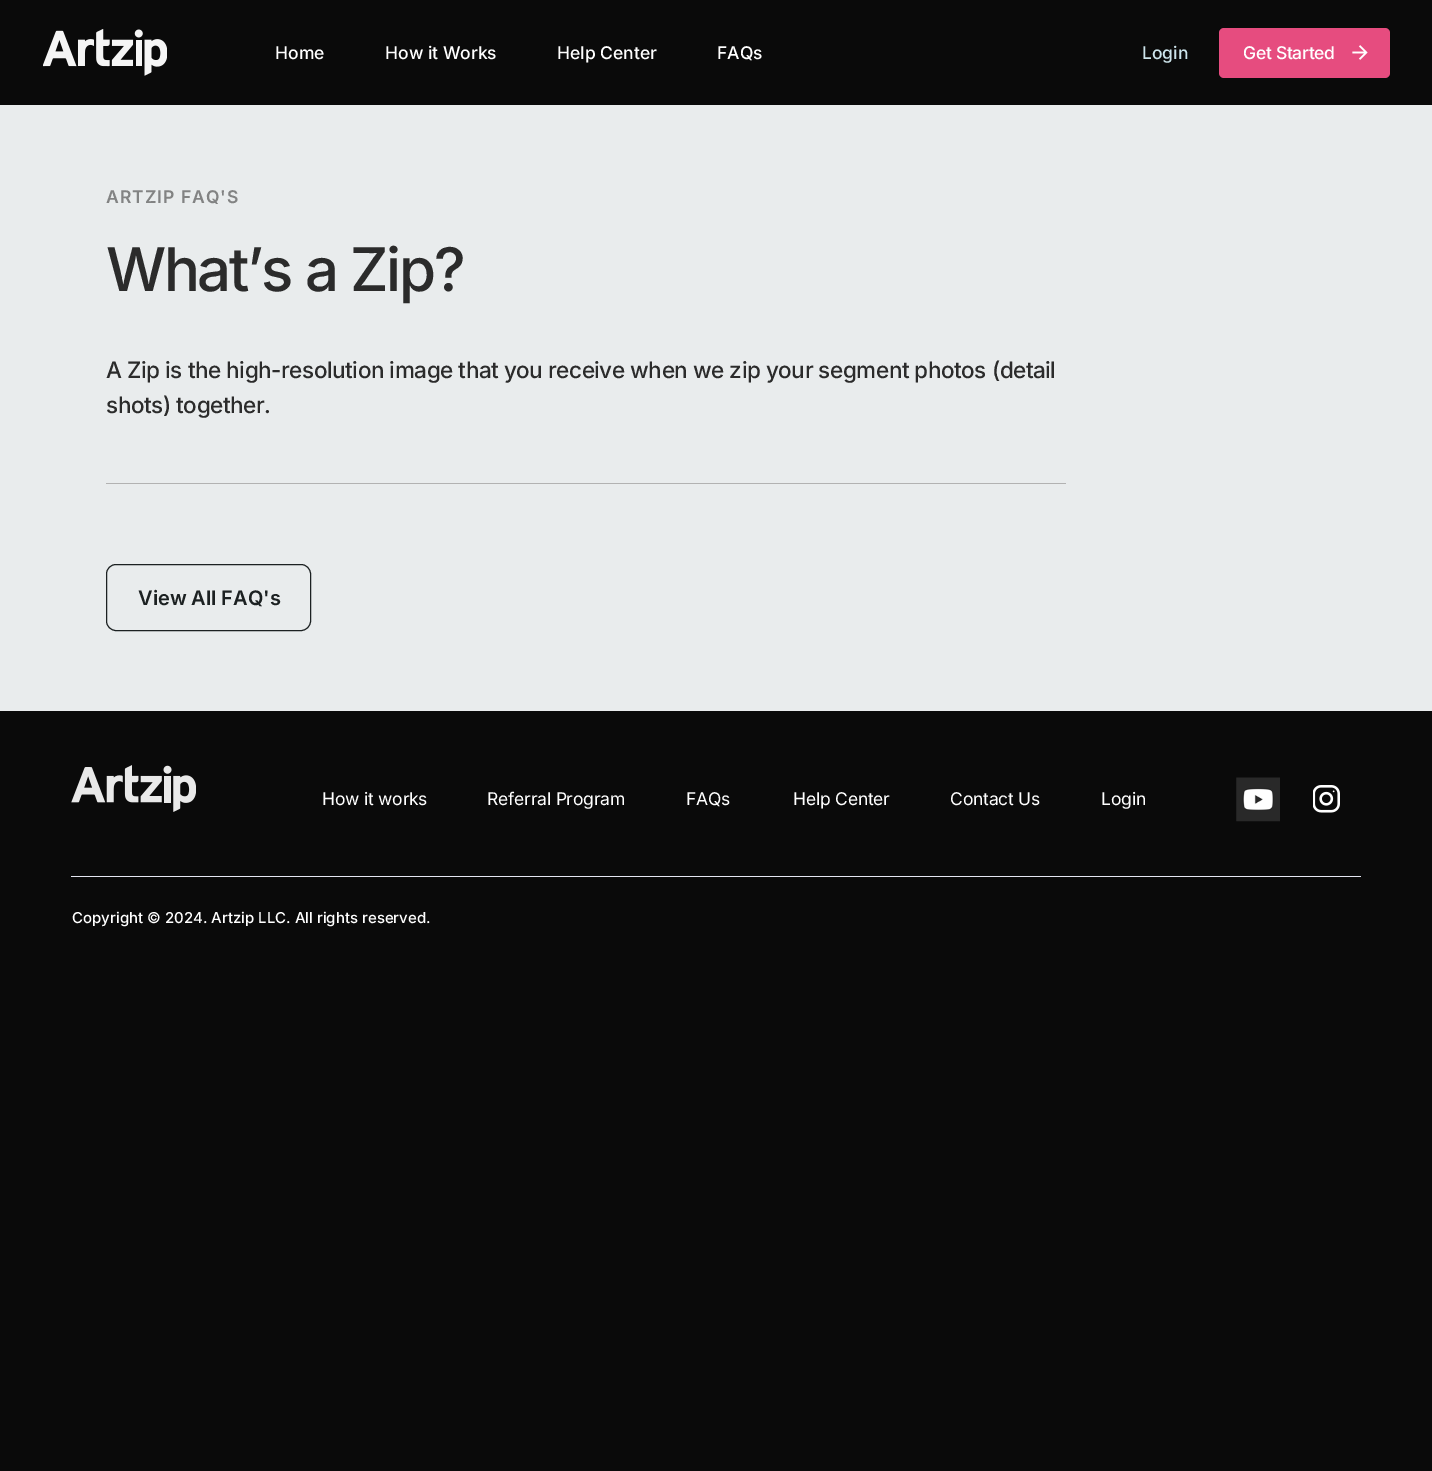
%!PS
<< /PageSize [1432 1471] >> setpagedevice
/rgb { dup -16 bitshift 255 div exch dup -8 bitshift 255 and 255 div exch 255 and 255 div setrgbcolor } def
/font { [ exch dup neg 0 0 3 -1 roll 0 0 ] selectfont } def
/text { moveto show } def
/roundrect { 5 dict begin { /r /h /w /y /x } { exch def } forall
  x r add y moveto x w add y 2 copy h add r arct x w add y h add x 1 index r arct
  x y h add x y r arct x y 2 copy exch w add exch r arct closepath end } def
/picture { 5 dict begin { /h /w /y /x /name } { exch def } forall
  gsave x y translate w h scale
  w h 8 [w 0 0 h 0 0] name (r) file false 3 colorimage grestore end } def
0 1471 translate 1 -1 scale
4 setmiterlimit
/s1 { /Inter-Medium 17.5 font 16#FFFFFF rgb } def
/s2 { /Inter-Medium 17.5 font 16#CDE4EB rgb } def
/s3 { /Inter-SemiBold 20 font 16#1C2122 rgb } def
/s4 { /Inter-Medium 15 font 16#FFFFFF rgb } def
16#0A0A0A rgb
0 0 1432 1471 rectfill
(pic1.raw) 43 29 124 47 picture
s1
(Home) 275 59 text
(How it Works) 385 59 text
(Help Center) 557 59 text
(FAQs) 717 59 text
s2
(Login) 1142 59 text
16#E64C7F rgb
1219 28 171 50 5 roundrect fill
16#FFFFFF rgb
1243 59 moveto -0.3 0 (Get Started) ashow
(pic2.raw) 1352 45 16 15 picture
16#E9ECED rgb
0 105 1432 606 rectfill
/Inter-SemiBold 17.5 font
16#828383 rgb
106 203 moveto 1 0 (ARTZIP FAQ'S) ashow
/Inter-Medium 60 font
16#2B2B2B rgb
106 291 moveto -2.4 0 (What’s a Zip?) ashow
/Inter-Medium 22.5 font
106 378 moveto -0.45 0 (A Zip is the high-resolution image that you receive when we zip your segment photos \(detail) ashow
106 413 moveto -0.45 0 (shots\) together.) ashow
16#B2B2B2 rgb
106 483 960 1 rectfill
16#1C2122 rgb
106.5 564.5 204 66 9.5 roundrect stroke
s3
(View All FAQ's) 138 605 text
(pic3.raw) 71 765 125 47 picture
/Inter-Regular 17.5 font
16#FFFFFF rgb
322 805 moveto -0.2 0 (How it works) ashow
487 805 moveto -0.2 0 (Referral Program) ashow
686 805 moveto -0.2 0 (FAQs) ashow
793 805 moveto -0.2 0 (Help Center) ashow
950 805 moveto -0.2 0 (Contact Us) ashow
1101 805 moveto -0.2 0 (Login) ashow
(pic4.raw) 1236 777 44 45 picture
(pic5.raw) 1313 785 27 28 picture
16#E4E6F1 rgb
71 876 1290 1 rectfill
s4
(Copyright © 2024. Artzip LLC. All rights reserved.) 72 923 text
showpage
